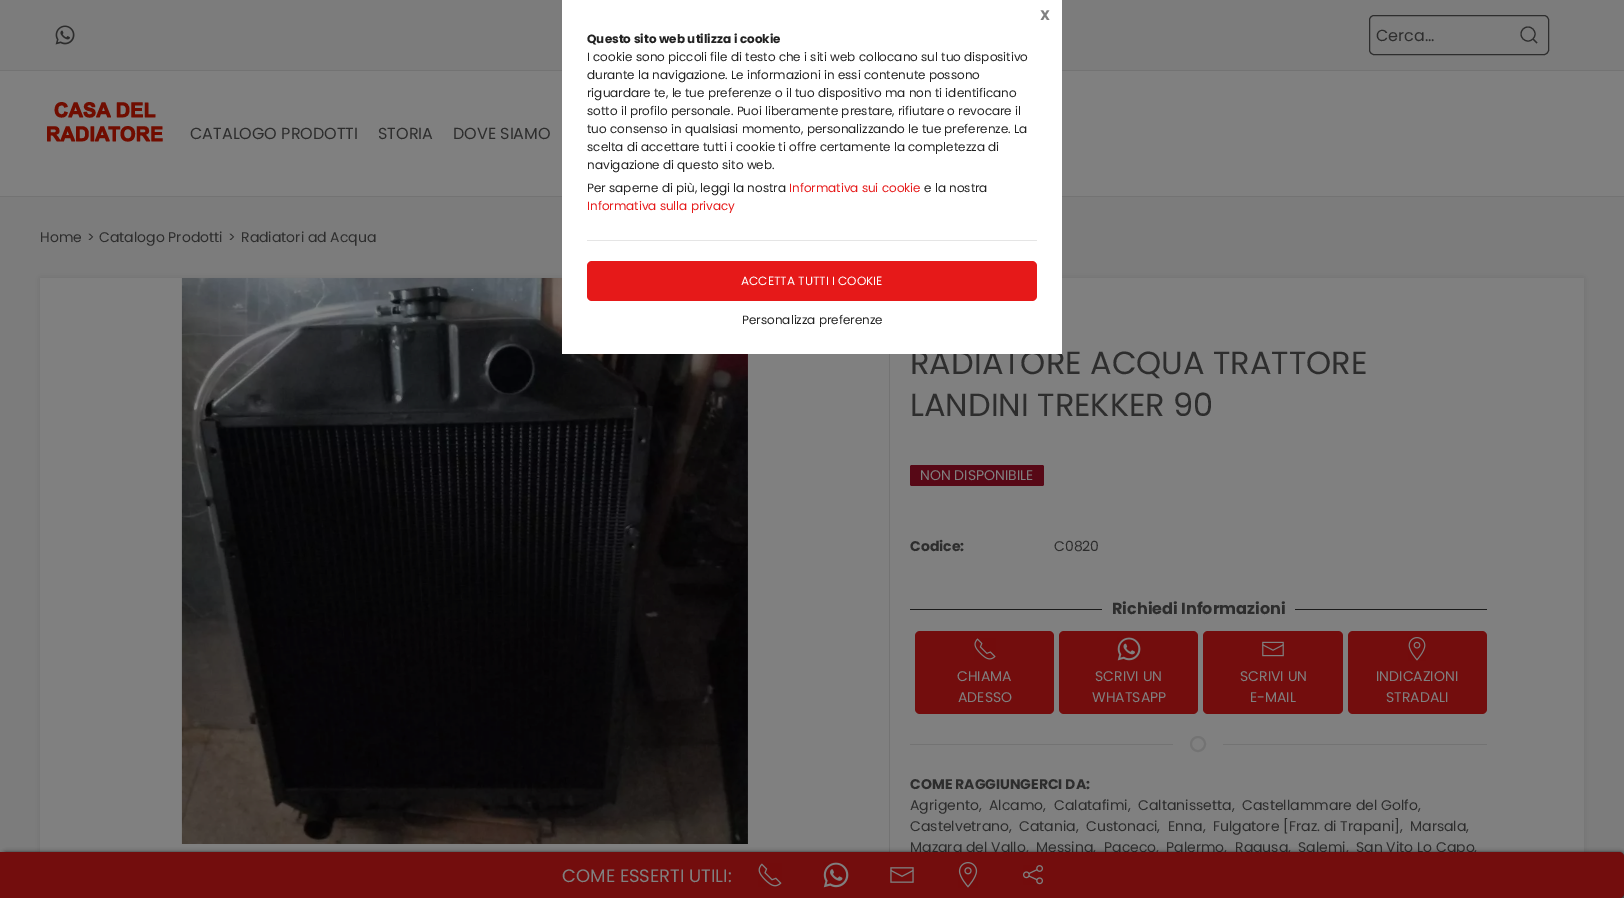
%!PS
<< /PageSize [1624 898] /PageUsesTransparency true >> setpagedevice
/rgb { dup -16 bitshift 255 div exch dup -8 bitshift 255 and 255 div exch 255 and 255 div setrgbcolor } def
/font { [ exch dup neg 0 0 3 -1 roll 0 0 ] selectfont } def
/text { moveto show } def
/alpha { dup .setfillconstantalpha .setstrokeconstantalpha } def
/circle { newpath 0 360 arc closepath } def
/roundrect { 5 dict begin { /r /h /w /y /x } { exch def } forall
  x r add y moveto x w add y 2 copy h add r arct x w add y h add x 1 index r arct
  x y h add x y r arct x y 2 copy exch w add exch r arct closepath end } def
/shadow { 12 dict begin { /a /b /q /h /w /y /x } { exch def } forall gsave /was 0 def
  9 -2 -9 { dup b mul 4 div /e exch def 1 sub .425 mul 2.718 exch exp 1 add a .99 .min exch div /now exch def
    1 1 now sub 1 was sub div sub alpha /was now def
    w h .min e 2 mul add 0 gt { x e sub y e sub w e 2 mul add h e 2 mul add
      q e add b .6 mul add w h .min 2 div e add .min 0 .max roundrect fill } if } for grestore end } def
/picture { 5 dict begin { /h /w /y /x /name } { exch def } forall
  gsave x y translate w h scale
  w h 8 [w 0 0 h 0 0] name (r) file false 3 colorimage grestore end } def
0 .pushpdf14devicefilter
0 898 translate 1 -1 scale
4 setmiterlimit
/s1 { /Poppins-Regular 32 font 16#2D2D2D rgb } def
/s2 { /Poppins-Bold 14 font 16#808080 rgb } def
/s3 { /Poppins-Bold 12 font 16#222222 rgb } def
/s4 { /Poppins-Regular 12 font 16#222222 rgb } def
/s5 { /Poppins-Regular 12 font 16#E61919 rgb } def
/s6 { /Poppins-Regular 12 font 16#FFFFFF rgb } def
/s7 { /Poppins-Regular 16 font 16#2D2D2D rgb } def
/s8 { /Poppins-Regular 14 font 16#2D2D2D rgb } def
/s9 { /Poppins-Regular 14 font 16#808080 rgb } def
/s10 { /Poppins-Bold 14 font 16#2D2D2D rgb } def
/s11 { /Poppins-Bold 16 font 16#2D2D2D rgb } def
/s12 { /Poppins-Regular 18 font 16#808080 rgb } def
16#7C7C7C rgb
0 0 1624 898 rectfill
16#808080 rgb
0 71 1624 125 rectfill
16#737373 rgb
0 196 1624 1 rectfill
0 70 1624 1 rectfill
16#000000 rgb
40 278 1544 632 0 4 0.1 shadow
16#808080 rgb
40 278 1544 574 rectfill
(pic3.raw) 181 278 567 566 picture
s1
(RADIATORE ACQUA TRATTORE) 910 374 text
16#FFFFFF rgb
562 0 500 354 rectfill
s2
(X) 1040 20 text
s3
(Questo sito web utilizza i cookie) 587 43 text
s4
(I cookie sono piccoli file di testo che i siti web collocano sul tuo dispositivo) 587 61 text
(durante la navigazione. Le informazioni in essi contenute possono) 587 79 text
(riguardare te, le tue preferenze o il tuo dispositivo ma non ti identificano) 587 97 text
(sotto il profilo personale. Puoi liberamente prestare, rifiutare o revocare il) 587 115 text
(tuo consenso in qualsiasi momento, personalizzando le tue preferenze. La) 587 133 text
(scelta di accettare tutti i cookie ti offre certamente la completezza di) 587 151 text
(navigazione di questo sito web.) 587 169 text
(Per saperne di più, leggi la nostra) 587 192 text
s5
(Informativa sui cookie) 789 192 text
s4
(e la nostra) 924 192 text
s5
(Informativa sulla privacy) 587 210 text
16#E5E5E5 rgb
587 240 450 1 rectfill
16#E61919 rgb
587 261 450 40 5 roundrect fill
s6
(ACCETTA TUTTI I COOKIE) 741 285 text
s4
(Personalizza preferenze) 742 324 text
(pic1.raw) 55 25 20 20 picture
16#2D2D2D rgb
1369.5 15.5 179 39 4.5 roundrect stroke
s7
(Cerca...) 1376 41 text
1.1 setlinewidth
1528 34 7 circle stroke
1533 39 moveto 1537 43 lineto closepath stroke
(pic2.raw) 47 102 116 40 picture
(CATALOGO PRODOTTI) 190 139 text
(STORIA) 378 139 text
(DOVE SIAMO) 453 139 text
s8
(Home) 40 242 text
(>) 87 242 text
(Catalogo Prodotti) 99 242 text
(>) 228 242 text
(Radiatori ad Acqua) 241 242 text
16#737373 rgb
889 354 1 498 rectfill
s1
(LANDINI TREKKER 90) 910 416 text
16#570816 rgb
910 465 134 21 2 roundrect fill
s9
(NON DISPONIBILE) 920 480 text
s10
(Codice:) 910 551 text
s8
(C0820) 1054 551 text
16#1A1A1A rgb
910 609 192 1 rectfill
s11
(Richiedi Informazioni) 1112 614 text
16#1A1A1A rgb
1295 609 192 1 rectfill
16#730D0D rgb
915 631 139 83 5 roundrect fill
(pic4.raw) 974 638 22 22 picture
s9
(CHIAMA) 957 681 text
(ADESSO) 958 702 text
16#730D0D rgb
1059 631 139 83 5 roundrect fill
(pic5.raw) 1117 637 24 24 picture
s9
(SCRIVI UN) 1095 681 text
(WHATSAPP) 1092 702 text
16#730D0D rgb
1203 631 140 83 5 roundrect fill
(pic6.raw) 1262 641 22 16 picture
s9
(SCRIVI UN) 1240 681 text
(E-MAIL) 1250 702 text
16#730D0D rgb
1348 631 139 83 5 roundrect fill
(pic7.raw) 1408 637 18 24 picture
s9
(INDICAZIONI) 1376 681 text
(STRADALI) 1386 702 text
16#737373 rgb
2 setlinewidth
1198 744 7 circle stroke
910 744 263 1 rectfill
1223 744 264 1 rectfill
s10
(COME RAGGIUNGERCI DA:) 910 789 text
s8
(Agrigento,) 910 810 text
(Alcamo,) 989 810 text
(Calatafimi,) 1054 810 text
(Caltanissetta,) 1138 810 text
(Castellammare del Golfo,) 1242 810 text
(Castelvetrano,) 910 831 text
(Catania,) 1019 831 text
(Custonaci,) 1086 831 text
(Enna,) 1168 831 text
(Fulgatore [Fraz. di Trapani],) 1213 831 text
(Marsala,) 1410 831 text
(Mazara del Vallo,) 910 852 text
(Messina,) 1036 852 text
(Paceco,) 1104 852 text
(Palermo,) 1166 852 text
(Ragusa,) 1235 852 text
(Salemi,) 1298 852 text
(San Vito Lo Capo,) 1356 852 text
16#111111 rgb
1 853 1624 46 5 2.5 1 shadow
16#730D0D rgb
0 852 moveto 1619 852 lineto 1622 852 1624 854 1624 857 curveto 1624 893 lineto 1624 896 1622 898 1619 898 curveto 0 898 lineto closepath fill
s12
(COME ESSERTI UTILI:) 562 882 text
(pic8.raw) 758 863 24 24 picture
(pic9.raw) 823 862 26 26 picture
(pic10.raw) 890 867 24 16 picture
(pic11.raw) 958 862 20 26 picture
(pic12.raw) 1023 865 20 20 picture
.poppdf14devicefilter showpage
